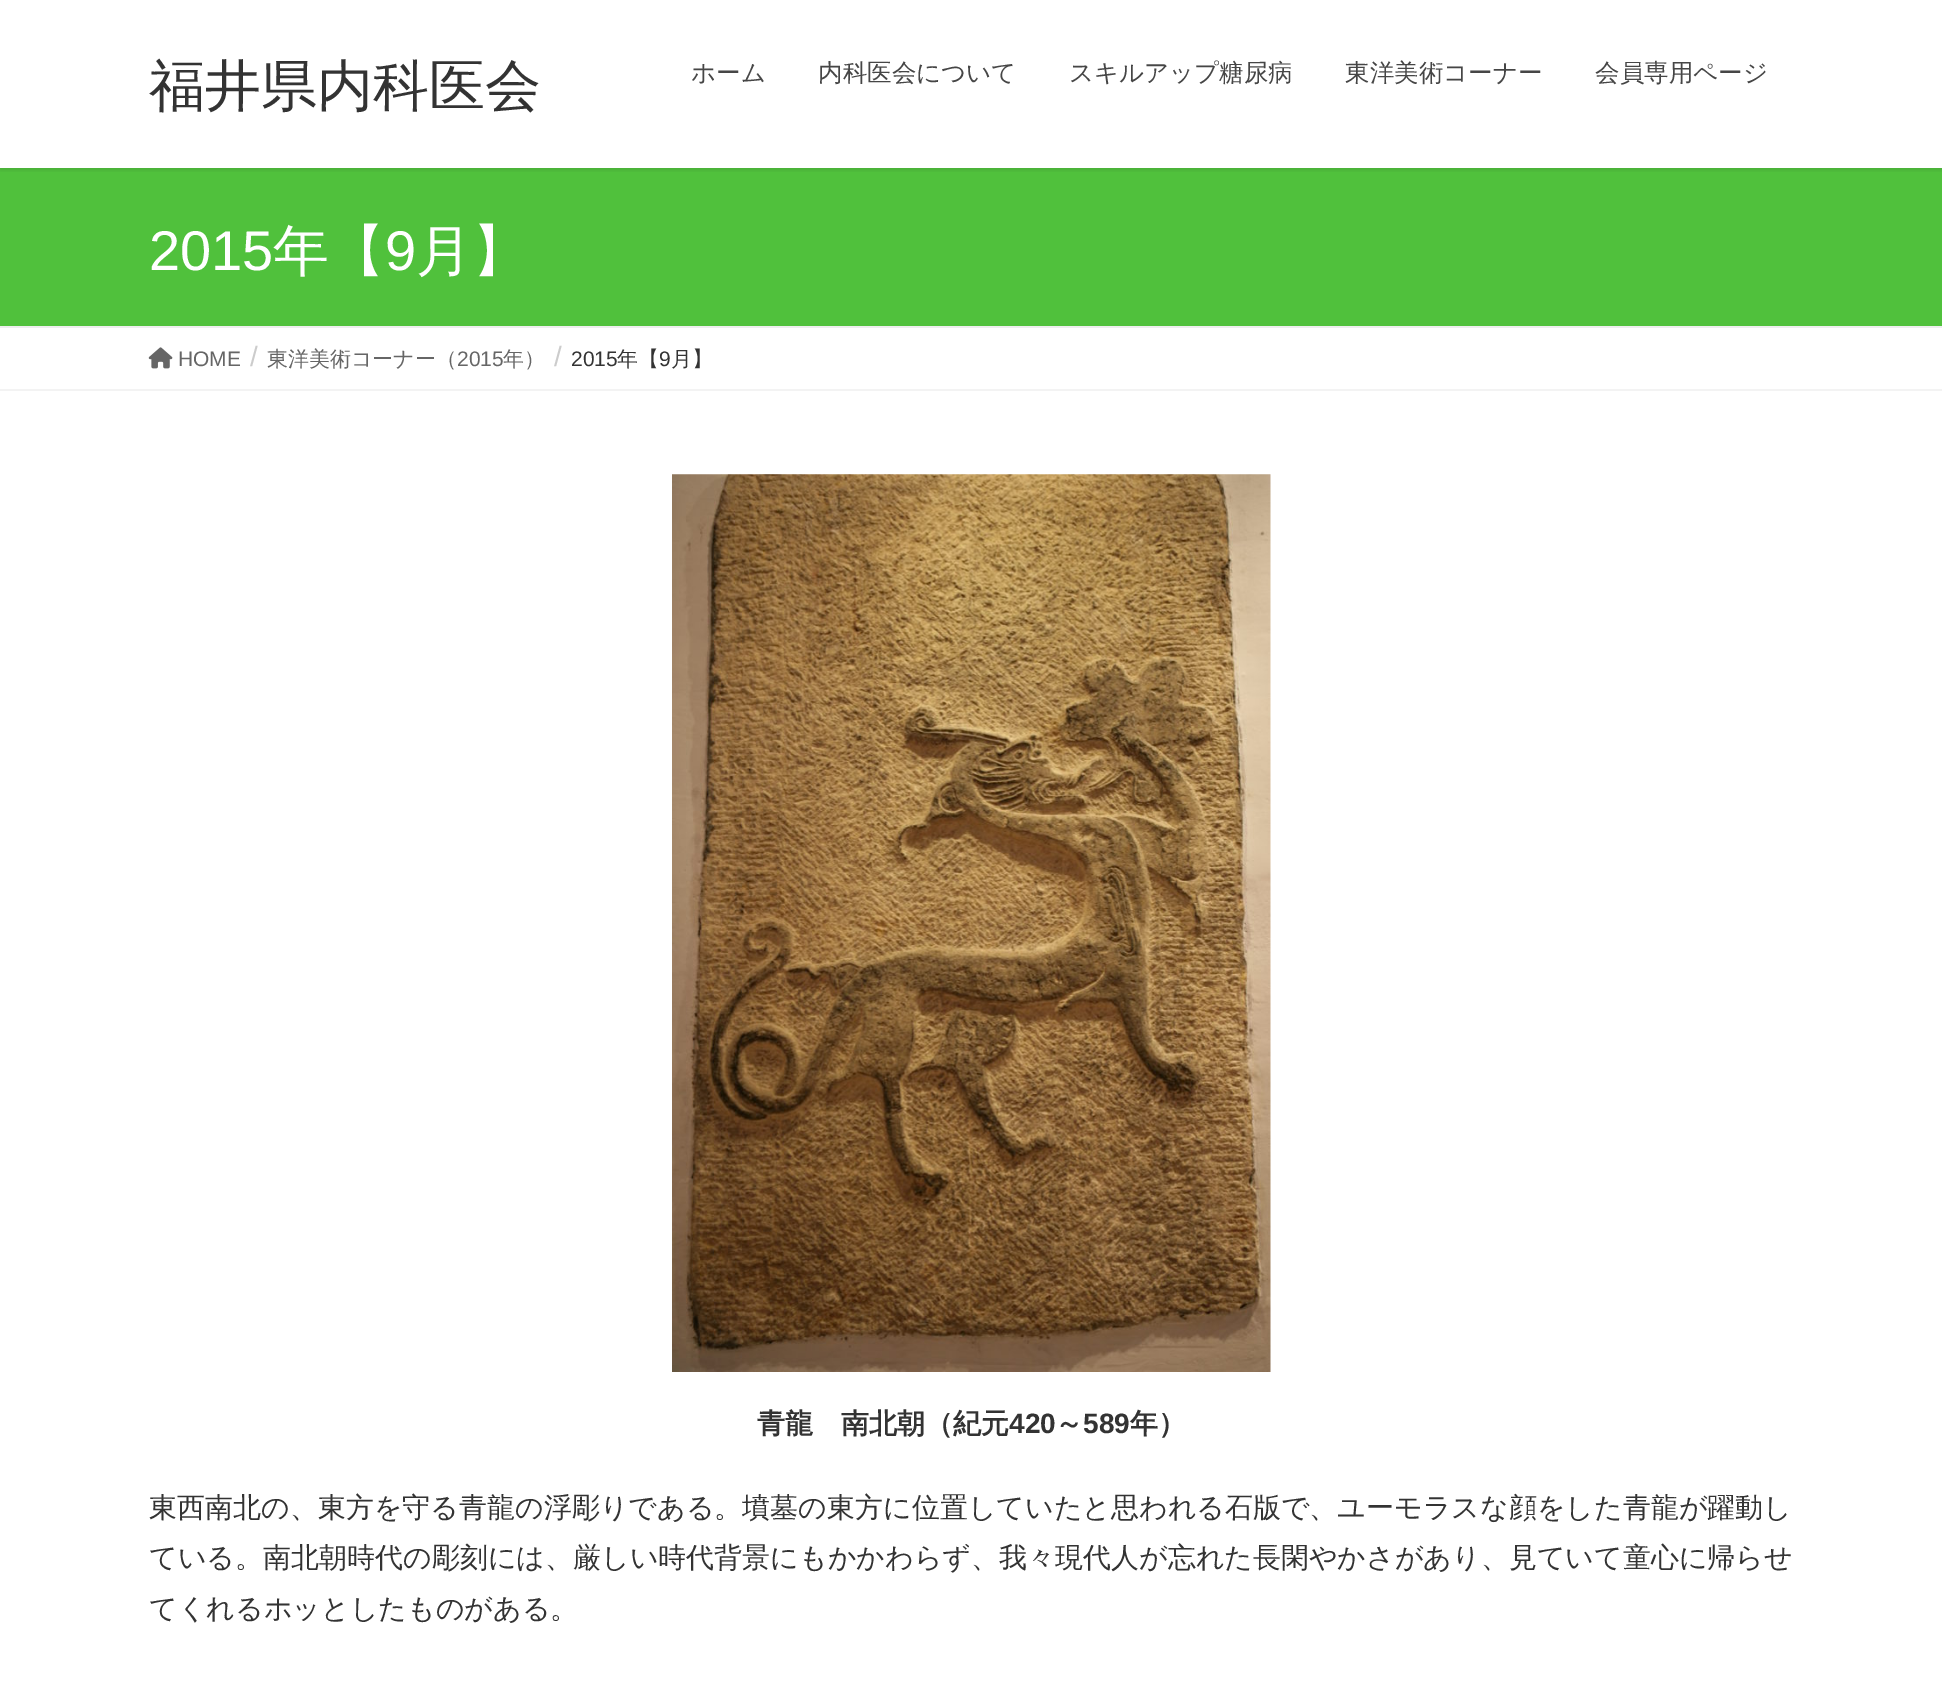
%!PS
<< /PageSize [1942 1681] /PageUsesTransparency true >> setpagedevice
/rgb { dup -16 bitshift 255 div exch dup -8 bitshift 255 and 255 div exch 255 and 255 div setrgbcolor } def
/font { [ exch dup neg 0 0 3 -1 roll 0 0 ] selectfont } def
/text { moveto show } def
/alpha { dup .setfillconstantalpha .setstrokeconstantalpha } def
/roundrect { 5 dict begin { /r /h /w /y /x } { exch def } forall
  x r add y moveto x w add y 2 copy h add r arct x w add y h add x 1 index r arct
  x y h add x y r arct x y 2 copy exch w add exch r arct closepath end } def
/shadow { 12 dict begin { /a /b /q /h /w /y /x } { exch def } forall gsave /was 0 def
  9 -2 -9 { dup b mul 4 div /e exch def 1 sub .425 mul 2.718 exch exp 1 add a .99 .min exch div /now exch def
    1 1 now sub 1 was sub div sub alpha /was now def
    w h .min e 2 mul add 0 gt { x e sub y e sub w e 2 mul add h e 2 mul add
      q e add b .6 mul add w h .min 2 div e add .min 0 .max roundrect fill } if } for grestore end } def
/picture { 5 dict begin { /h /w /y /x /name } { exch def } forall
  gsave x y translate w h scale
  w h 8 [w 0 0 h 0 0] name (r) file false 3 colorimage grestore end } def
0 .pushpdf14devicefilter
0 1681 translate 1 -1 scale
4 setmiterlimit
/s1 { /WenQuanYiZenHei-Medium 56 font 16#333333 rgb } def
/s2 { /WenQuanYiZenHei-Medium 24.5 font 16#464646 rgb } def
/s3 { /LiberationSans-Regular 56 font 16#FFFFFF rgb } def
/s4 { /WenQuanYiZenHei-Medium 56 font 16#FFFFFF rgb } def
/s5 { /LiberationSans-Regular 21 font 16#666666 rgb } def
/s6 { /LiberationSans-Regular 28 font 16#CCCCCC rgb } def
/s7 { /WenQuanYiZenHei-Medium 21 font 16#666666 rgb } def
/s8 { /LiberationSans-Regular 21 font 16#333333 rgb } def
/s9 { /WenQuanYiZenHei-Medium 21 font 16#333333 rgb } def
/s10 { /WenQuanYiZenHei-Bold 28 font 16#333333 rgb } def
/s11 { /LiberationSans-Bold 28 font 16#333333 rgb } def
/s12 { /WenQuanYiZenHei-Medium 28 font 16#333333 rgb } def
16#FFFFFF rgb
0 0 1942 1681 rectfill
16#50C13C rgb
0 168 1942 158 rectfill
gsave
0 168 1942 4 rectclip
16#000000 rgb
0 2 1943 168 0 2.5 0.1 shadow
grestore
s1
(福井県内科医会) 149 105 text
s2
(ホーム) 691 81 text
(内科医会について) 818 81 text
(スキルアップ糖尿病) 1069 81 text
(東洋美術コーナー) 1345 81 text
(会員専用ページ) 1595 81 text
16#EEEEEE rgb
0 326 1942 2 rectfill
s3
(2015) 149 270 text
s4
(年【) 273 270 text
s3
(9) 385 270 text
s4
(月】) 416 270 text
16#F3F3F3 rgb
0 389 1942 2 rectfill
(pic1.raw) 148 347 25 22 picture
s5
(HOME) 178 366 text
s6
(/) 250 366 text
s7
(東洋美術コーナー（) 267 366 text
s5
(2015) 457 366 text
s7
(年）) 503 366 text
s6
(/) 554 366 text
s8
(2015) 571 366 text
s9
(年【) 617 366 text
s8
(9) 659 366 text
s9
(月】) 671 366 text
(pic2.raw) 672 474 599 898 picture
s10
(青龍　南北朝（紀元) 757 1433 text
s11
(420) 1009 1433 text
s10
(～) 1055 1433 text
s11
(589) 1083 1433 text
s10
(年）) 1130 1433 text
s12
(東西南北の、東方を守る青龍の浮彫りである。墳墓の東方に位置していたと思われる石版で、ユーモラスな顔をした青龍が躍動し) 149 1517 text
(ている。南北朝時代の彫刻には、厳しい時代背景にもかかわらず、我々現代人が忘れた長閑やかさがあり、見ていて童心に帰らせ) 149 1567 text
(てくれるホッとしたものがある。) 149 1618 text
.poppdf14devicefilter showpage
